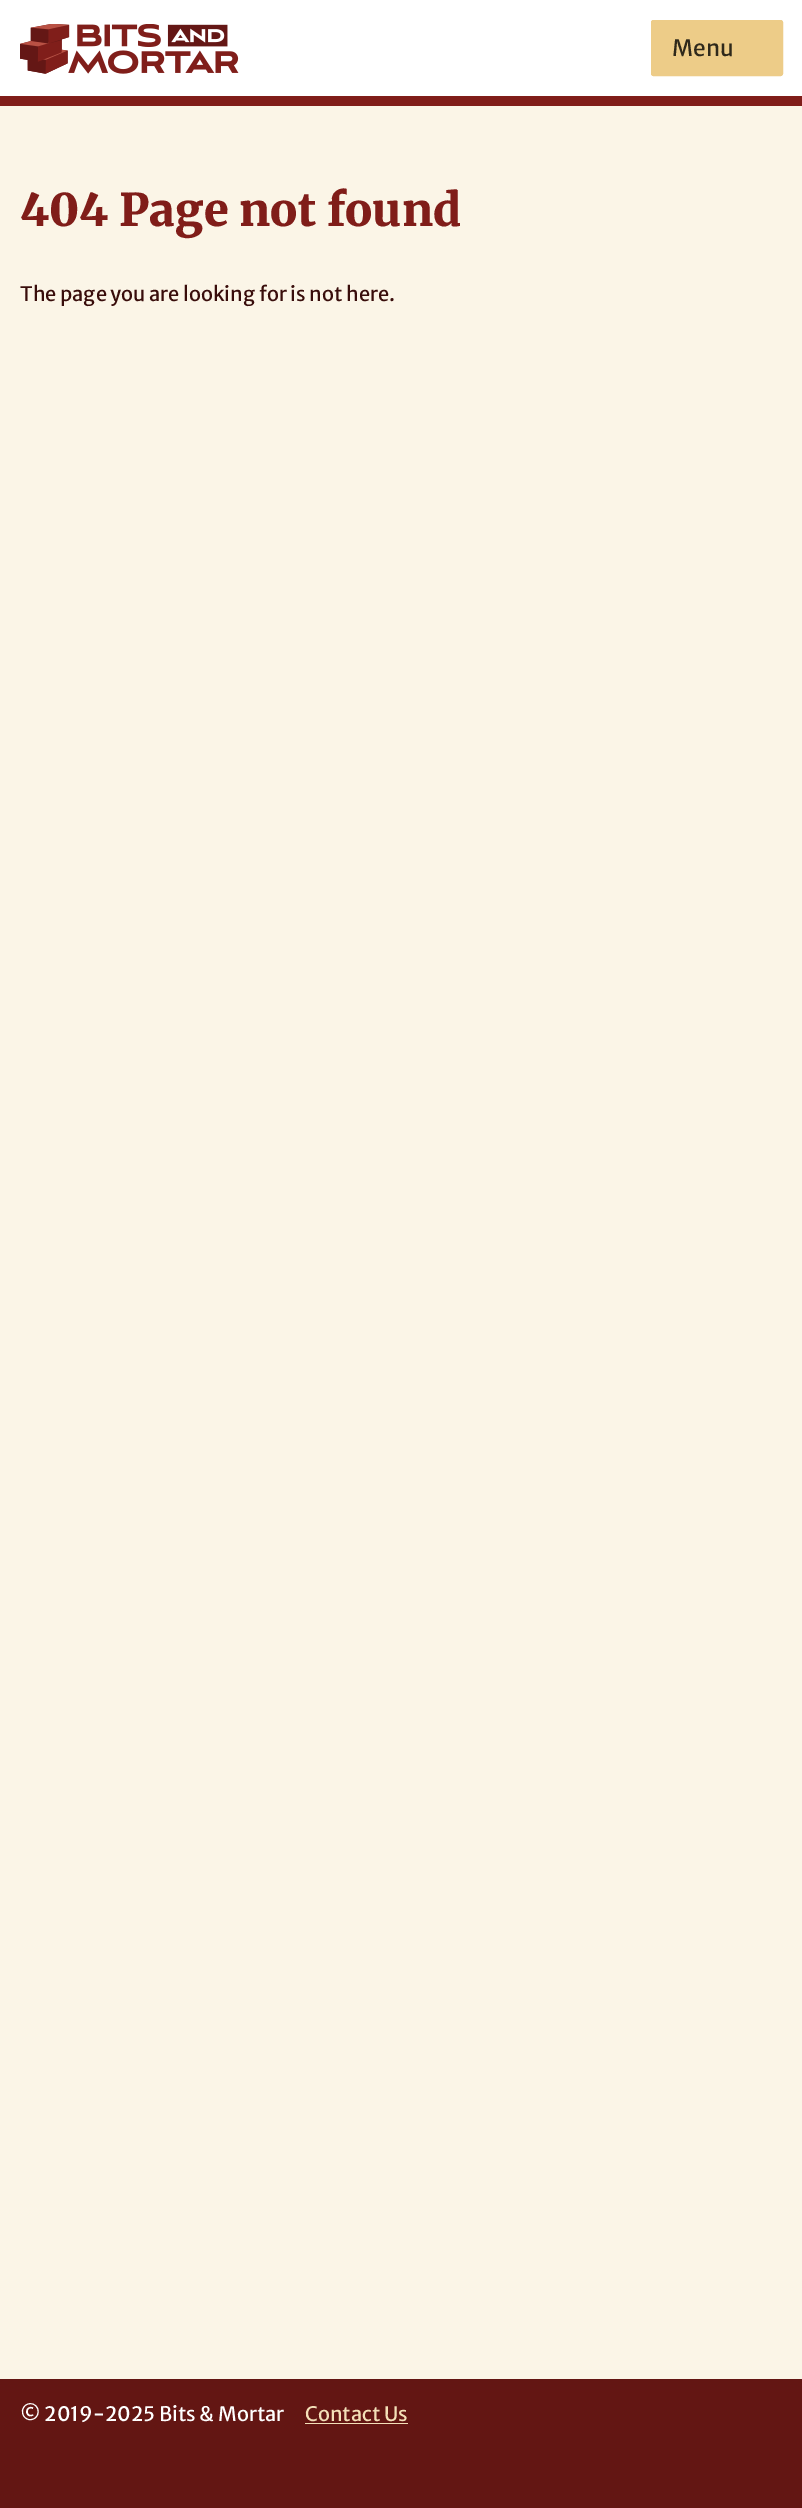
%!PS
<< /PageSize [802 2508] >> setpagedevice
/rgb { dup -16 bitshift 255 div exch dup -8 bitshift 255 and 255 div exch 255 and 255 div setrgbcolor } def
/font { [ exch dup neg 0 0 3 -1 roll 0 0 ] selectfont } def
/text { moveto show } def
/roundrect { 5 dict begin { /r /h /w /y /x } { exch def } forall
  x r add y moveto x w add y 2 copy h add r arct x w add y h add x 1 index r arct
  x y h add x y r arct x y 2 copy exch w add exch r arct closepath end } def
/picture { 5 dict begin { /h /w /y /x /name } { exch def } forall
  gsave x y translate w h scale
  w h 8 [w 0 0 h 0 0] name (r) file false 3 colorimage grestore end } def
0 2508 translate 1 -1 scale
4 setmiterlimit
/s1 { /MerriweatherSans-Regular 22.5 font 16#2F291B rgb } def
/s2 { /Merriweather-Black 45 font 16#801D19 rgb } def
/s3 { /MerriweatherSans-Regular 20 font 16#390D0B rgb } def
/s4 { /MerriweatherSans-Regular 20 font 16#FFFFFF rgb } def
/s5 { /MerriweatherSans-Regular 20 font 16#F4E0B8 rgb } def
16#FBF5E7 rgb
0 0 802 2508 rectfill
16#FFFFFF rgb
0 0 802 96 rectfill
16#801D19 rgb
0 96 802 10 rectfill
(pic1.raw) 20 24 219 50 picture
16#EDCC88 rgb
651.5 20.5 131 55 2 roundrect gsave fill grestore
stroke
s1
(Menu) 672 56 text
s2
(404 Page not found) 20 226 text
s3
(The page you are looking for is not here.) 20 301 text
16#631613 rgb
0 2379 802 129 rectfill
s4
(© 2019-2025 Bits & Mortar) 20 2421 text
s5
(Contact Us) 305 2421 text
305 2423 103 1 rectfill
showpage
